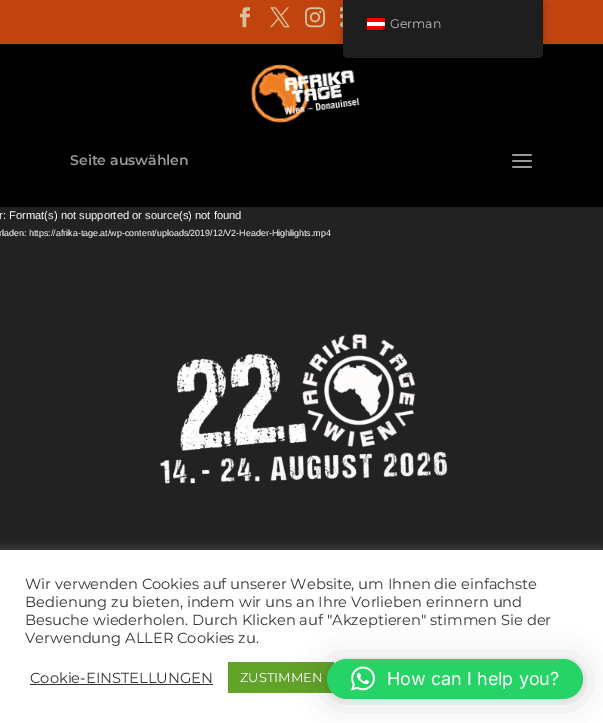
%!PS
<< /PageSize [603 723] /PageUsesTransparency true >> setpagedevice
/rgb { dup -16 bitshift 255 div exch dup -8 bitshift 255 and 255 div exch 255 and 255 div setrgbcolor } def
/font { [ exch dup neg 0 0 3 -1 roll 0 0 ] selectfont } def
/text { moveto show } def
/alpha { dup .setfillconstantalpha .setstrokeconstantalpha } def
/roundrect { 5 dict begin { /r /h /w /y /x } { exch def } forall
  x r add y moveto x w add y 2 copy h add r arct x w add y h add x 1 index r arct
  x y h add x y r arct x y 2 copy exch w add exch r arct closepath end } def
/shadow { 12 dict begin { /a /b /q /h /w /y /x } { exch def } forall gsave /was 0 def
  9 -2 -9 { dup b mul 4 div /e exch def 1 sub .425 mul 2.718 exch exp 1 add a .99 .min exch div /now exch def
    1 1 now sub 1 was sub div sub alpha /was now def
    w h .min e 2 mul add 0 gt { x e sub y e sub w e 2 mul add h e 2 mul add
      q e add b .6 mul add w h .min 2 div e add .min 0 .max roundrect fill } if } for grestore end } def
/picture { 5 dict begin { /h /w /y /x /name } { exch def } forall
  gsave x y translate w h scale
  w h 8 [w 0 0 h 0 0] name (r) file false 3 colorimage grestore end } def
0 .pushpdf14devicefilter
0 723 translate 1 -1 scale
4 setmiterlimit
/s1 { /Montserrat-Regular 12.5 font 16#BDBDBD rgb } def
/s2 { /Montserrat-SemiBold 14 font 16#999999 rgb } def
/s3 { /LiberationSans-Regular 11.2 font 16#FFFFFF rgb } def
/s4 { /LiberationSans-Regular 8.95 font 16#FFFFFF rgb } def
/s5 { /Montserrat-Regular 14.65 font 16#333333 rgb } def
/s6 { /Montserrat-Regular 13 font 16#FFFFFF rgb } def
/s7 { /Inter-Regular 18 font 16#FFFFFF rgb } def
16#000000 rgb
0 0 603 723 rectfill
16#C1440F rgb
0 0 603 44 rectfill
(pic5.raw) 340 7 3 21 picture
(pic6.raw) 250 64 110 59 picture
16#000000 rgb
343 0 200 58 5 4 0.25 shadow
16#1E1E1E rgb
343 0 moveto 543 0 lineto 543 53 lineto 543 56 541 58 538 58 curveto 348 58 lineto 345 58 343 56 343 53 curveto closepath fill
(pic1.raw) 367 18 18 12 picture
s1
(German) 390 28 text
(pic2.raw) 240 7 10 21 picture
(pic3.raw) 270 7 20 21 picture
(pic4.raw) 305 7 20 21 picture
s2
(Seite auswählen) 70 165 text
(pic7.raw) 512 154 20 14 picture
16#222222 rgb
0 207 603 343 rectfill
s3
(r: Format\(s\) not supported or source\(s\) not found) -1 219 text
s4
(rladen: https://afrika-tage.at/wp-content/uploads/2019/12/V2-Header-Highlights.mp4) -1 236 text
(pic8.raw) 160 334 288 150 picture
16#ACABAB rgb
0 549 603 173 0 5 0.3 shadow
16#FFFFFF rgb
0 550 603 173 rectfill
s5
(Wir verwenden Cookies auf unserer Website, um Ihnen die einfachste) 25 589 text
(Bedienung zu bieten, indem wir uns an Ihre Vorlieben erinnern und) 25 607 text
(Besuche wiederholen. Durch Klicken auf "Akzeptieren" stimmen Sie der) 25 625 text
(Verwendung ALLER Cookies zu.) 25 643 text
(Cookie-EINSTELLUNGEN) 30 683 text
30 684 183 1 rectfill
16#61A229 rgb
228 662 106 31 rectfill
s6
(ZUSTIMMEN) 240 682 text
16#000000 rgb
327 661 256 40 20 16 0.16 shadow
327 660 256 40 20 3 0.06 shadow
16#25D366 rgb
327 659 256 40 20 roundrect fill
(pic9.raw) 351 666 24 25 picture
s7
(How can I help you?) 387 685 text
.poppdf14devicefilter showpage
